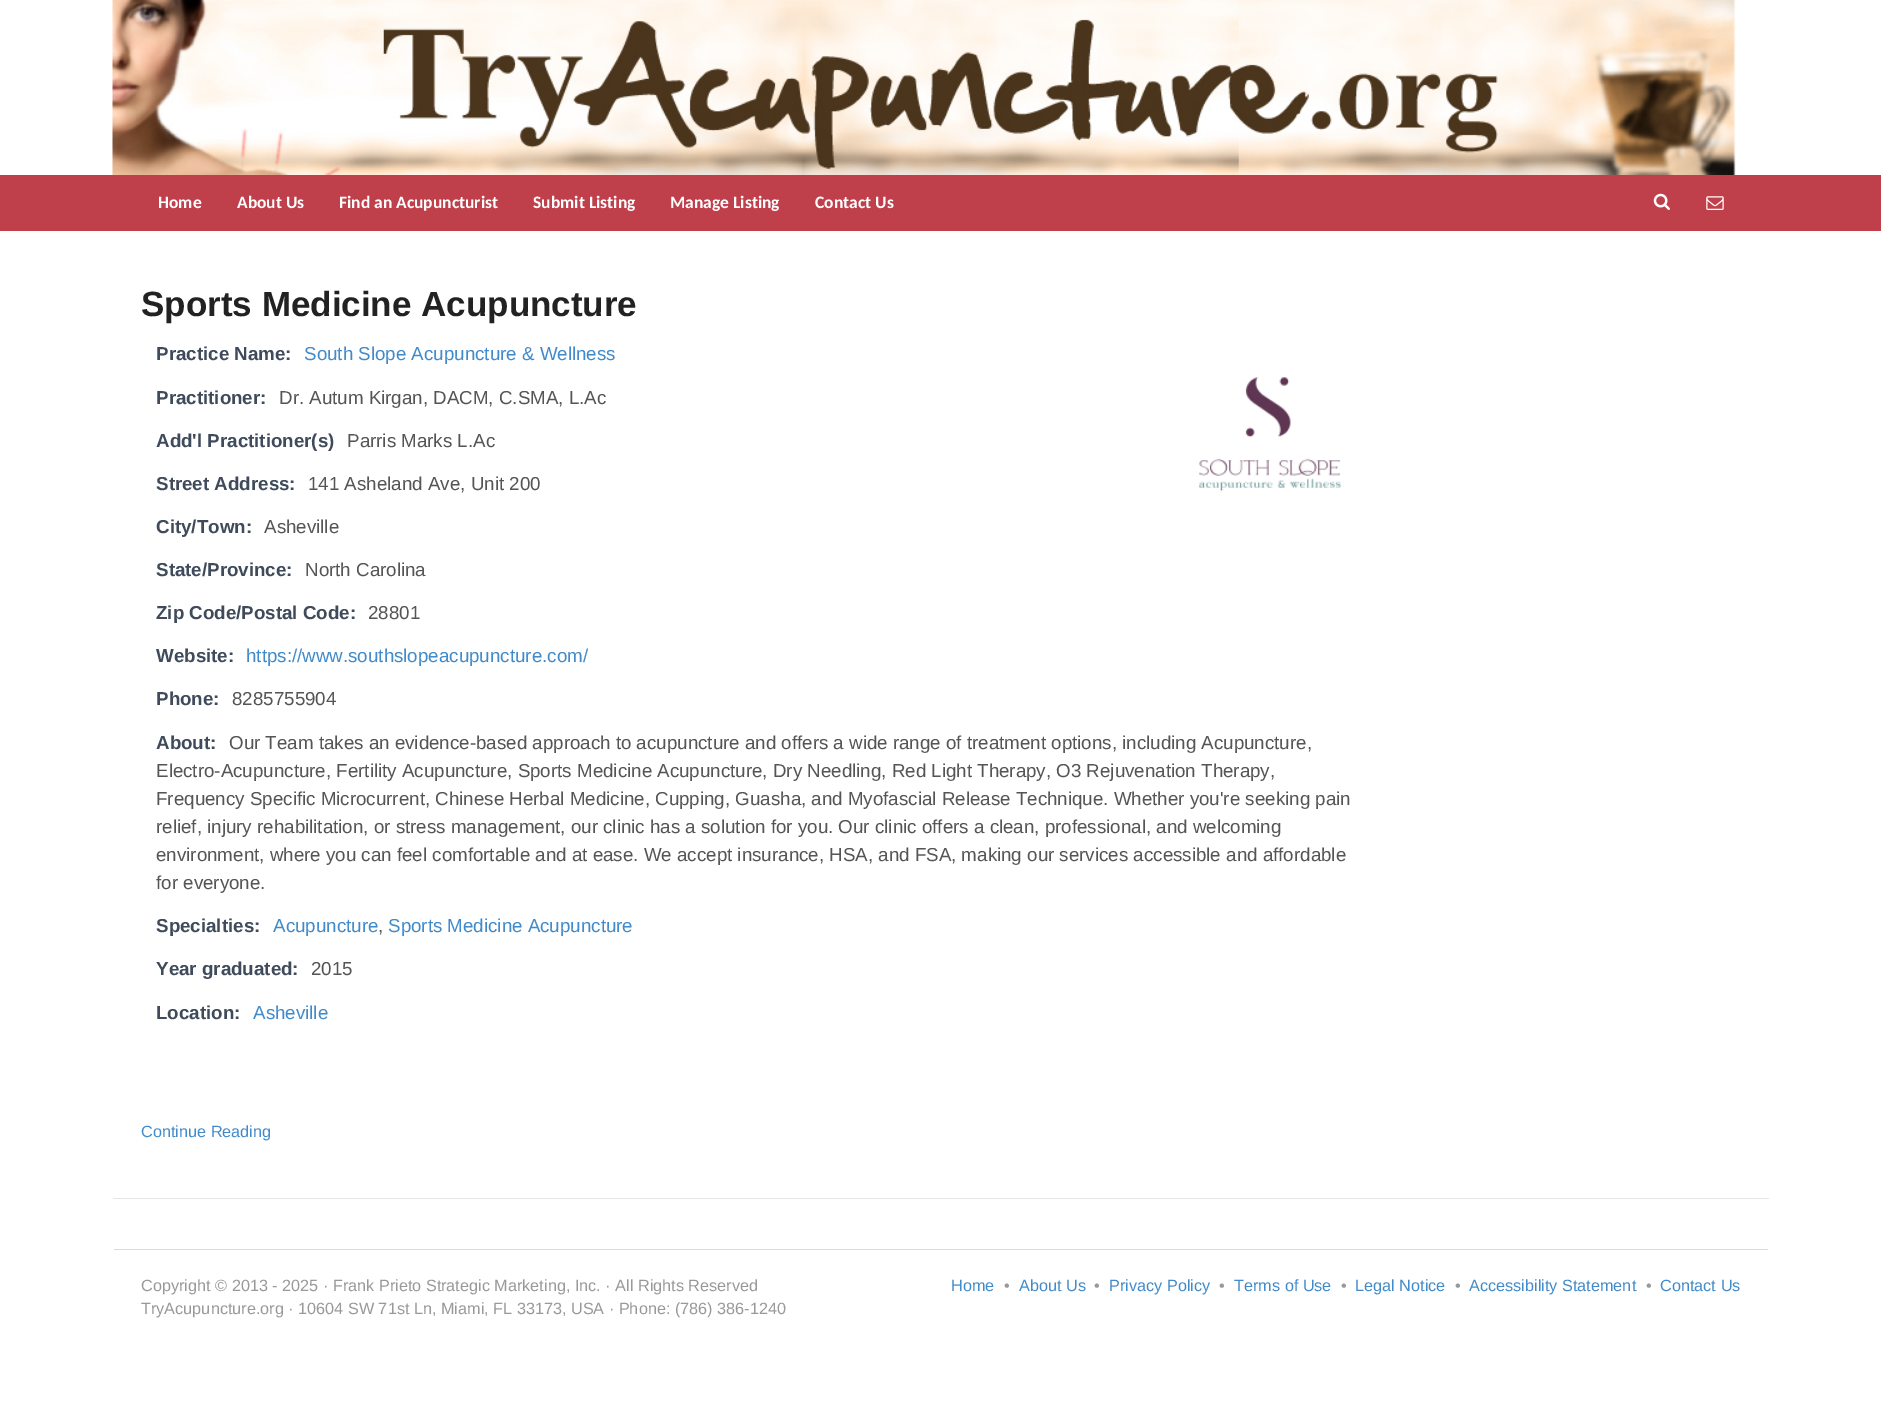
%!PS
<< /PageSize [1881 1416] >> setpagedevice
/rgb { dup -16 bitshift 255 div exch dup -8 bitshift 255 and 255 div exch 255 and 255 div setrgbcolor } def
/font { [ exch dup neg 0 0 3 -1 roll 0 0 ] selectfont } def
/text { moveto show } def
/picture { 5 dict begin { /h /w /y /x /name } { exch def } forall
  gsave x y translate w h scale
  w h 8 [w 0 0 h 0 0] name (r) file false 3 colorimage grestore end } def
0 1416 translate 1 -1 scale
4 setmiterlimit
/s1 { /Carlito-Bold 17.5 font 16#FFFFFF rgb } def
/s2 { /LiberationSans-Bold 35 font 16#222222 rgb } def
/s3 { /LiberationSans-Bold 18.75 font 16#3F4B5B rgb } def
/s4 { /LiberationSans-Regular 18.75 font 16#428BCA rgb } def
/s5 { /LiberationSans-Regular 18.75 font 16#555555 rgb } def
/s6 { /LiberationSans-Regular 16.25 font 16#428BCA rgb } def
/s7 { /LiberationSans-Regular 16.25 font 16#999999 rgb } def
16#FFFFFF rgb
0 0 1881 1416 rectfill
(pic1.raw) 112 0 1624 175 picture
16#BF3F4B rgb
0 175 1881 56 rectfill
s1
(Home) 158 208 text
(About Us) 237 208 text
(Find an Acupuncturist) 339 208 text
(Submit Listing) 533 208 text
(Manage Listing) 670 208 text
(Contact Us) 815 208 text
(pic2.raw) 1653 193 17 17 picture
(pic3.raw) 1706 196 18 14 picture
s2
(Sports Medicine Acupuncture) 141 316 text
s3
(Practice Name:) 156 360 text
s4
(South Slope Acupuncture & Wellness) 304 360 text
s3
(Practitioner:) 156 404 text
s5
(Dr. Autum Kirgan, DACM, C.SMA, L.Ac) 279 404 text
s3
(Add'l Practitioner\(s\)) 156 447 text
s5
(Parris Marks L.Ac) 347 447 text
s3
(Street Address:) 156 490 text
s5
(141 Asheland Ave, Unit 200) 308 490 text
s3
(City/Town:) 156 533 text
s5
(Asheville) 264 533 text
s3
(State/Province:) 156 576 text
s5
(North Carolina) 305 576 text
s3
(Zip Code/Postal Code:) 156 619 text
s5
(28801) 368 619 text
s3
(Website:) 156 662 text
s4
(https://www.southslopeacupuncture.com/) 246 662 text
s3
(Phone:) 156 705 text
s5
(8285755904) 232 705 text
s3
(About:) 156 749 text
s5
(Our Team takes an evidence-based approach to acupuncture and offers a wide range of treatment options, including Acupuncture,) 229 749 text
(Electro-Acupuncture, Fertility Acupuncture, Sports Medicine Acupuncture, Dry Needling, Red Light Therapy, O3 Rejuvenation Therapy,) 156 777 text
(Frequency Specific Microcurrent, Chinese Herbal Medicine, Cupping, Guasha, and Myofascial Release Technique. Whether you're seeking pain) 156 805 text
(relief, injury rehabilitation, or stress management, our clinic has a solution for you. Our clinic offers a clean, professional, and welcoming) 156 833 text
(environment, where you can feel comfortable and at ease. We accept insurance, HSA, and FSA, making our services accessible and affordable) 156 861 text
(for everyone.) 156 889 text
s3
(Specialties:) 156 932 text
s4
(Acupuncture) 273 932 text
s5
(,) 378 932 text
s4
(Sports Medicine Acupuncture) 388 932 text
s3
(Year graduated:) 156 975 text
s5
(2015) 311 975 text
s3
(Location:) 156 1019 text
s4
(Asheville) 253 1019 text
(pic4.raw) 1199 377 142 115 picture
s6
(Continue Reading) 141 1137 text
16#E6E6E6 rgb
113 1198 1656 1 rectfill
16#DBDBDB rgb
114 1249 1654 1 rectfill
s7
(Copyright © 2013 - 2025 · Frank Prieto Strategic Marketing, Inc. · All Rights Reserved) 141 1291 text
(TryAcupuncture.org · 10604 SW 71st Ln, Miami, FL 33173, USA · Phone: \(786\) 386-1240) 141 1314 text
s6
(Home) 951 1291 text
s7
(•) 1004 1291 text
s6
(About Us) 1019 1291 text
s7
(•) 1094 1291 text
s6
(Privacy Policy) 1109 1291 text
s7
(•) 1219 1291 text
s6
(Terms of Use) 1234 1291 text
s7
(•) 1341 1291 text
s6
(Legal Notice) 1355 1291 text
s7
(•) 1455 1291 text
s6
(Accessibility Statement) 1469 1291 text
s7
(•) 1646 1291 text
s6
(Contact Us) 1660 1291 text
showpage
